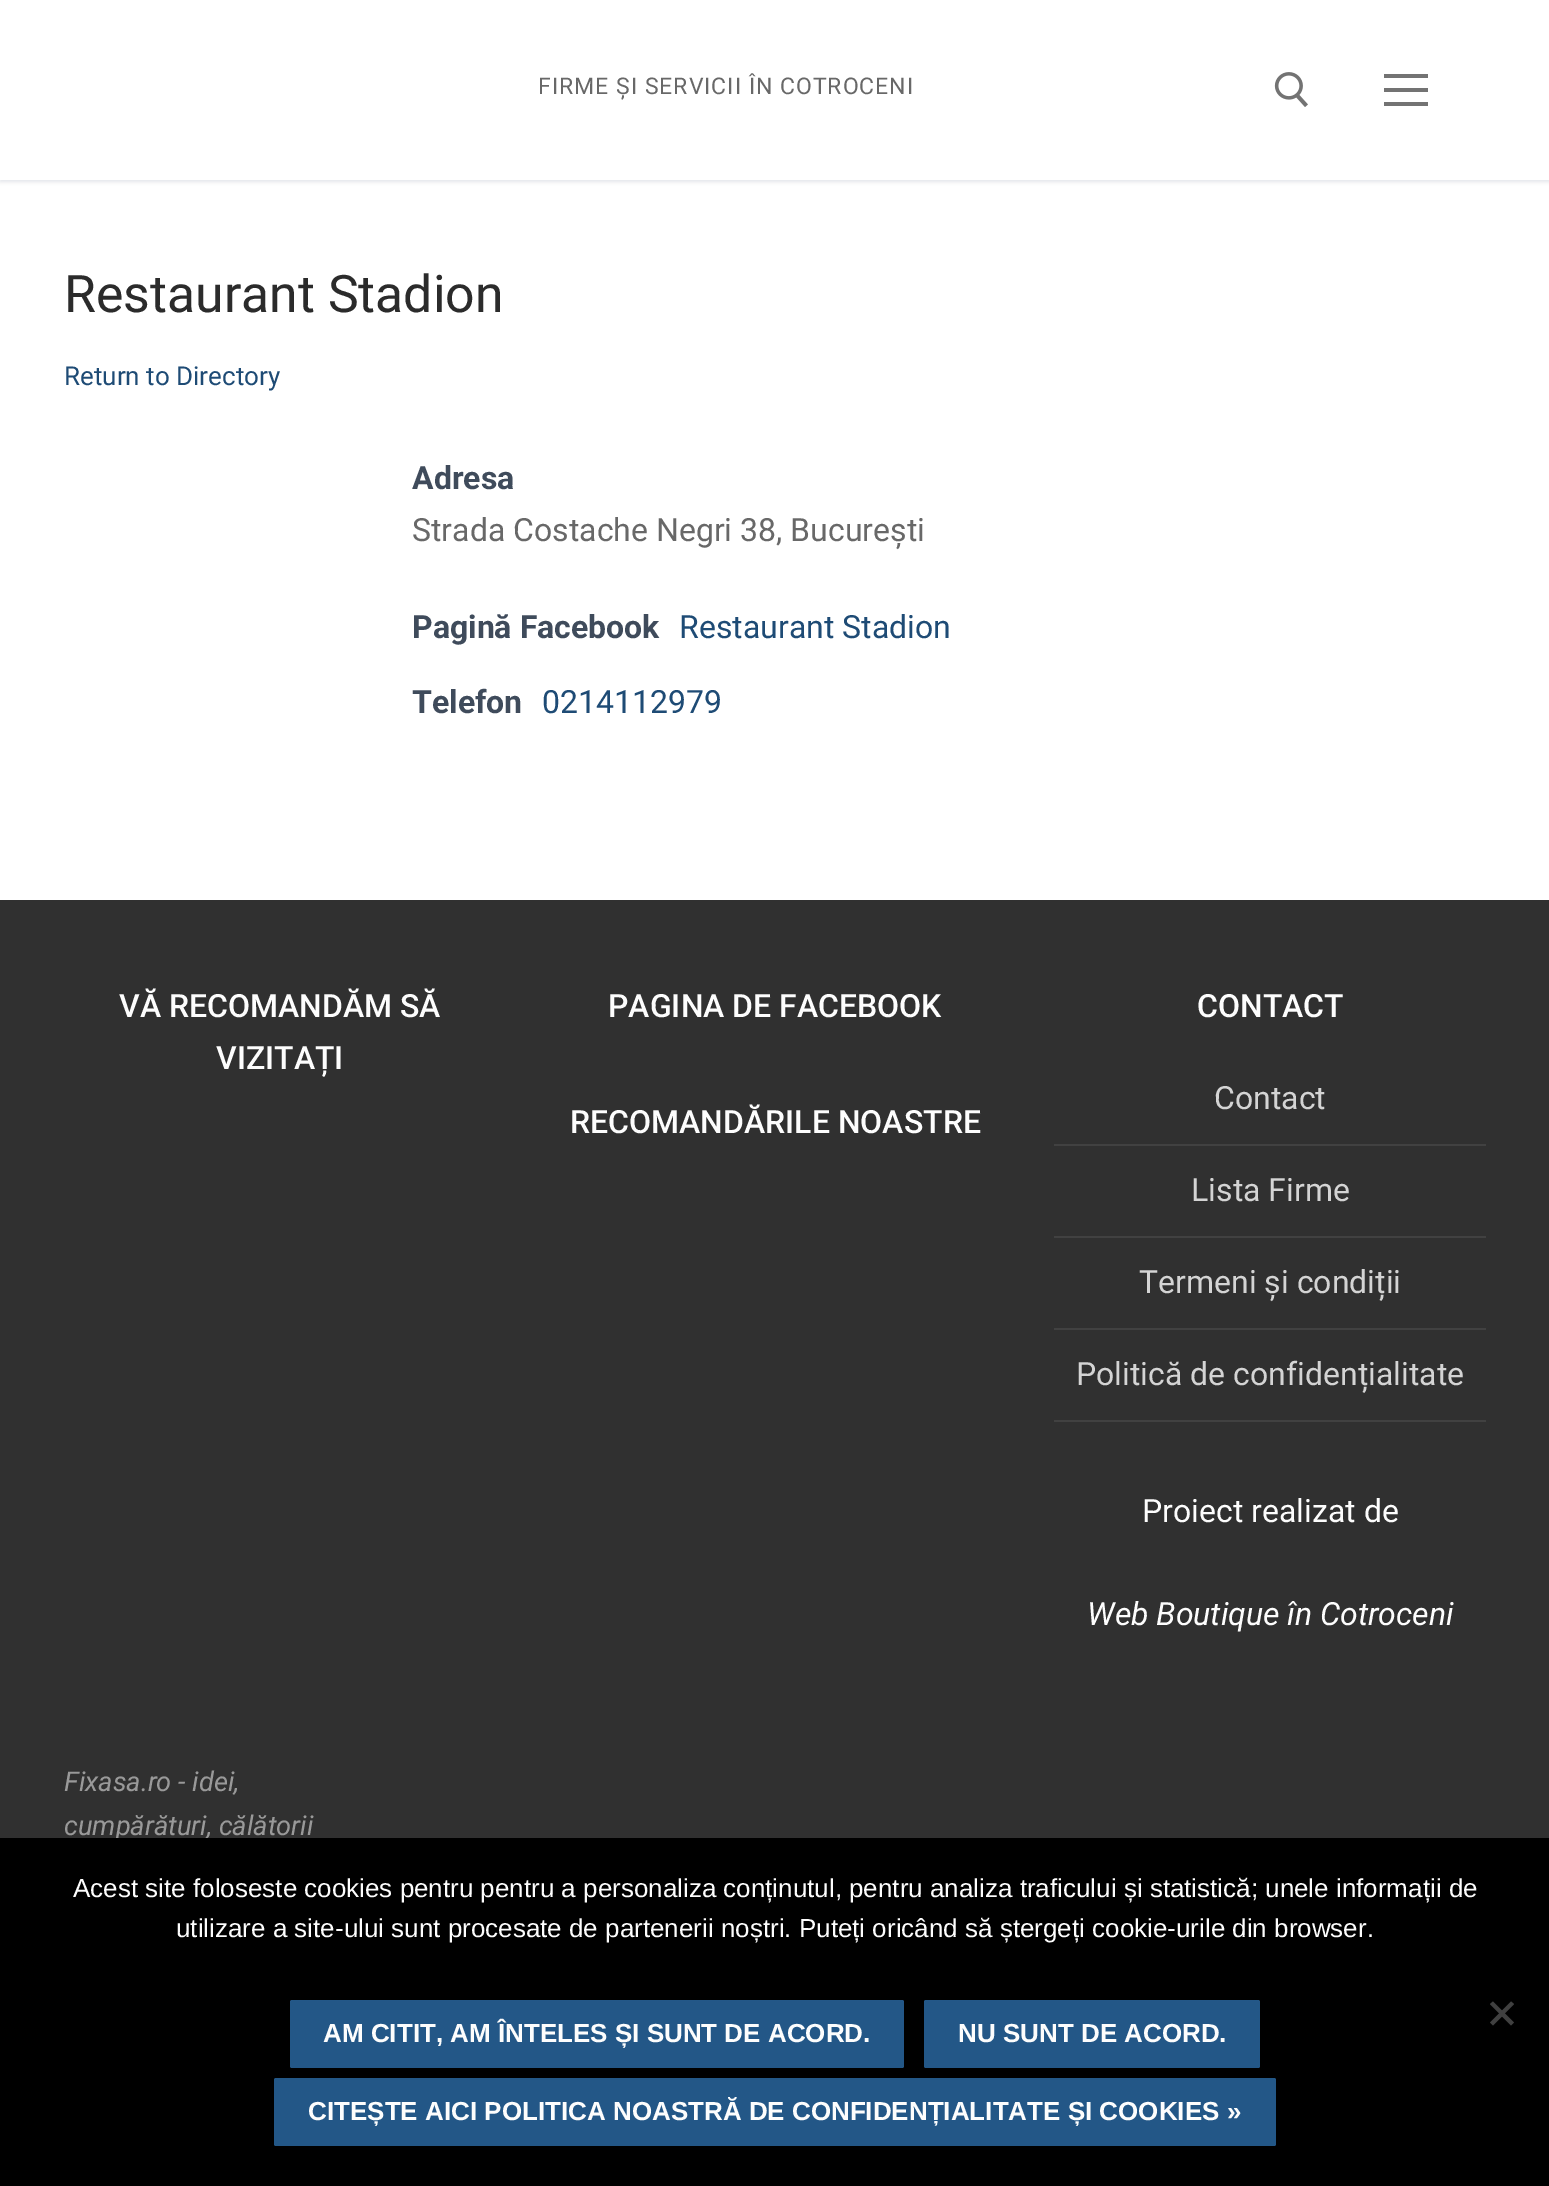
%!PS
<< /PageSize [1549 2186] /PageUsesTransparency true >> setpagedevice
/rgb { dup -16 bitshift 255 div exch dup -8 bitshift 255 and 255 div exch 255 and 255 div setrgbcolor } def
/font { [ exch dup neg 0 0 3 -1 roll 0 0 ] selectfont } def
/text { moveto show } def
/alpha { dup .setfillconstantalpha .setstrokeconstantalpha } def
/roundrect { 5 dict begin { /r /h /w /y /x } { exch def } forall
  x r add y moveto x w add y 2 copy h add r arct x w add y h add x 1 index r arct
  x y h add x y r arct x y 2 copy exch w add exch r arct closepath end } def
/shadow { 12 dict begin { /a /b /q /h /w /y /x } { exch def } forall gsave /was 0 def
  9 -2 -9 { dup b mul 4 div /e exch def 1 sub .425 mul 2.718 exch exp 1 add a .99 .min exch div /now exch def
    1 1 now sub 1 was sub div sub alpha /was now def
    w h .min e 2 mul add 0 gt { x e sub y e sub w e 2 mul add h e 2 mul add
      q e add b .6 mul add w h .min 2 div e add .min 0 .max roundrect fill } if } for grestore end } def
/picture { 5 dict begin { /h /w /y /x /name } { exch def } forall
  gsave x y translate w h scale
  w h 8 [w 0 0 h 0 0] name (r) file false 3 colorimage grestore end } def
0 .pushpdf14devicefilter
0 2186 translate 1 -1 scale
4 setmiterlimit
/s1 { /Roboto-Regular 51.75 font 16#2B2B2B rgb } def
/s2 { /Roboto-Regular 26 font 16#1E4B75 rgb } def
/s3 { /Roboto-Bold 32 font 16#3F4B5B rgb } def
/s4 { /Roboto-Regular 32 font 16#686868 rgb } def
/s5 { /Roboto-Regular 32 font 16#1E4B75 rgb } def
/s6 { /Roboto-Medium 32 font 16#FDFDFD rgb } def
/s7 { /Roboto-Italic 27.25 font 16#999999 rgb } def
/s8 { /Roboto-Regular 32 font 16#D4D4D4 rgb } def
/s9 { /Roboto-Regular 32 font 16#FDFDFD rgb } def
/s10 { /Roboto-Italic 32 font 16#FDFDFD rgb } def
/s11 { /LiberationSans-Regular 26 font 16#FDFDFD rgb } def
/s12 { /LiberationSans-Bold 26 font 16#FDFDFD rgb } def
16#FFFFFF rgb
0 0 1549 2186 rectfill
gsave
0 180 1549 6 rectclip
16#E1E5EA rgb
0 2 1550 180 0 2 1 shadow
grestore
/Roboto-Regular 23 font
16#686868 rgb
538 94 moveto 1 0 (FIRME ȘI SERVICII ÎN COTROCENI) ashow
(pic1.raw) 1274 72 34 35 picture
16#737373 rgb
1384 88 44 4 rectfill
1384 74 44 4 rectfill
1384 102 44 4 rectfill
s1
(Restaurant Stadion) 64 312 text
s2
(Return to Directory) 64 385 text
s3
(Adresa) 412 489 text
s4
(Strada Costache Negri 38, București) 412 541 text
s3
(Pagină Facebook) 412 638 text
s5
(Restaurant Stadion) 679 638 text
s3
(Telefon) 412 713 text
s5
(0214112979) 542 713 text
16#303030 rgb
0 900 1549 938 rectfill
s6
(VĂ RECOMANDĂM SĂ) 119 1017 text
(VIZITAȚI) 216 1069 text
s7
(Fixasa.ro - idei,) 64 1791 text
(cumpărături, călătorii) 64 1835 text
s6
(PAGINA DE FACEBOOK) 608 1017 text
(RECOMANDĂRILE NOASTRE) 570 1133 text
(CONTACT) 1197 1017 text
16#414141 rgb
1054 1144 432 2 rectfill
s8
(Contact) 1214 1109 text
16#414141 rgb
1054 1236 432 2 rectfill
s8
(Lista Firme) 1191 1201 text
16#414141 rgb
1054 1328 432 2 rectfill
s8
(Termeni și condiții) 1139 1293 text
16#414141 rgb
1054 1420 432 2 rectfill
s8
(Politică de confidențialitate) 1076 1385 text
s9
(Proiect realizat de) 1142 1522 text
s10
(Web Boutique în Cotroceni) 1087 1625 text
16#000000 rgb
0 1838 1549 348 rectfill
s11
(Acest site foloseste cookies pentru pentru a personaliza conținutul, pentru analiza traficului și statistică; unele informații de) 73 1897 text
(utilizare a site-ului sunt procesate de partenerii noștri. Puteți oricând să ștergeți cookie-urile din browser.) 176 1937 text
16#404040 rgb
1511 2001.5 moveto 1514 2004 lineto 1493 2025.5 lineto 1490 2022.5 lineto closepath fill
1490 2004 moveto 1493 2001.5 lineto 1514 2022.5 lineto 1511 2025.5 lineto closepath fill
16#235787 rgb
290 2000 614 68 2 roundrect fill
s12
(AM CITIT, AM ÎNTELES ȘI SUNT DE ACORD.) 323 2042 text
16#235787 rgb
924 2000 336 68 2 roundrect fill
s12
(NU SUNT DE ACORD.) 958 2042 text
16#235787 rgb
274 2078 1002 68 2 roundrect fill
s12
(CITEȘTE AICI POLITICA NOASTRĂ DE CONFIDENȚIALITATE ȘI COOKIES ») 308 2120 text
.poppdf14devicefilter showpage
